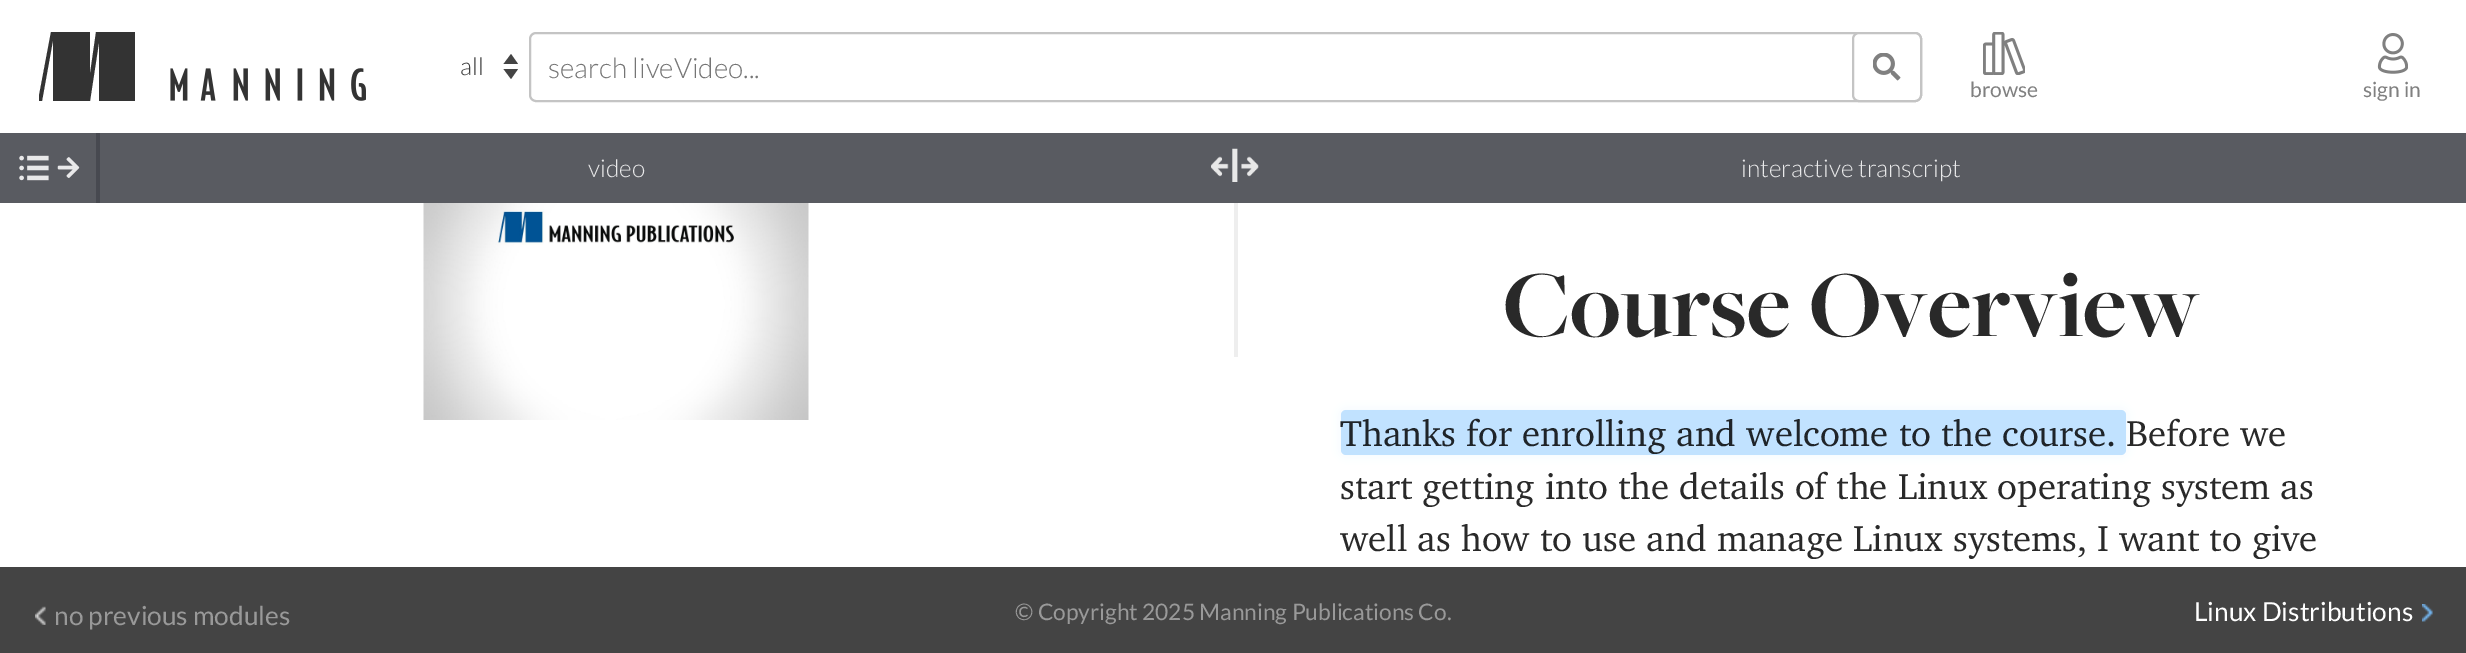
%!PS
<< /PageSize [2466 653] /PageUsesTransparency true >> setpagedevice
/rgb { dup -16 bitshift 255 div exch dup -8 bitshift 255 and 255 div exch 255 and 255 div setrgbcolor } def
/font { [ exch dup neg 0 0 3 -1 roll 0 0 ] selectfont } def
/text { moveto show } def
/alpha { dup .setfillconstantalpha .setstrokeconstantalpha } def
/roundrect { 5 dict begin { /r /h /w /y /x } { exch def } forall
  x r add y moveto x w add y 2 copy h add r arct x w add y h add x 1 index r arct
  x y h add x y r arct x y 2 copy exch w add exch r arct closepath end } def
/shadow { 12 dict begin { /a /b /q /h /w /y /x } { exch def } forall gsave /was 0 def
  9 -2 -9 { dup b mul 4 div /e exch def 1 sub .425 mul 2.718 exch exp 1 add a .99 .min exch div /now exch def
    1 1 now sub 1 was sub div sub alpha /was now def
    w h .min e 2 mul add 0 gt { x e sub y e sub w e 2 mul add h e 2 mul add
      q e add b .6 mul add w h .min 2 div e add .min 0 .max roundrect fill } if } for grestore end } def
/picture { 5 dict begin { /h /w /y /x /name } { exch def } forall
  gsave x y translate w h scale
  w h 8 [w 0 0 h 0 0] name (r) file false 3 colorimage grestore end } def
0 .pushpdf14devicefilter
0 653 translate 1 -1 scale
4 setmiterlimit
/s1 { /Lato-Light 24.5 font 16#404040 rgb } def
/s2 { /Lato-Light 28 font 16#757575 rgb } def
/s3 { /Lato-Regular 21 font 16#808080 rgb } def
/s4 { /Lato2-Light 24.5 font 16#E9E9EA rgb } def
/s5 { /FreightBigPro-Bold 98 font 16#292929 rgb } def
/s6 { /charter-Regular 36.75 font 16#1F2429 rgb } def
/s7 { /charter-Regular 36.75 font 16#292929 rgb } def
/s8 { /Lato-Regular 26.25 font 16#999999 rgb } def
/s9 { /Lato-Regular 22.75 font 16#999999 rgb } def
/s10 { /Lato-Regular 26.25 font 16#FFFFFF rgb } def
16#FFFFFF rgb
0 0 2466 653 rectfill
gsave
39 32 98 70 rectclip
16#333333 rgb
51 32 moveto 90 32 lineto 90 74 lineto 96 32 lineto 135 32 lineto 135 101 lineto 99 101 lineto 99 42 lineto 90 101 lineto 53 101 lineto 53 40 lineto 42 101 lineto 38 101 lineto 51 32 lineto eofill
grestore
(pic1.raw) 170 68 196 33 picture
16#444444 rgb
503.5 64 moveto 511 54 lineto 518 64 lineto closepath 518 69 moveto 511 79 lineto 503.5 69 lineto closepath fill
s1
(all) 460 75 text
16#C4C4C4 rgb
2 setlinewidth
530 33 1391 68 6 roundrect stroke
s2
(search liveVideo...) 548 78 text
16#FFFFFF rgb
1853 33 68 68 6 roundrect gsave fill grestore
16#C4C4C4 rgb
stroke
(pic2.raw) 1873 53 28 28 picture
(pic3.raw) 1983 32 42 43 picture
s3
(browse) 1970 97 text
(pic4.raw) 2377 33 31 41 picture
(sign in) 2363 97 text
16#595B61 rgb
0 133 1234 70 rectfill
16#474950 rgb
96 133 4 70 rectfill
(pic5.raw) 19 155 30 26 picture
(pic6.raw) 57 157 23 21 picture
s4
(video) 588 177 text
(pic7.raw) 423 203 386 217 picture
16#595B61 rgb
1234 133 1232 70 rectfill
(pic8.raw) 1211 148 48 34 picture
s4
(interactive transcript) 1741 177 text
16#EEEEEE rgb
1234 203 4 154 rectfill
s5
(Course Overview) 1503 336 text
16#7CBCF3 rgb
1341 410 785 45 5 4.5 0.1 shadow
16#C1E2FF rgb
1341 410 785 45 5 roundrect fill
s6
(Thanks for enrolling and welcome to the course.) 1340 446 text
s7
(Before we) 2126 446 text
(start getting into the details of the Linux operating system as) 1340 499 text
(well as how to use and manage Linux systems, I want to give) 1340 551 text
16#444444 rgb
0 567 2466 86 rectfill
(pic9.raw) 35 606 11 19 picture
s8
(no previous modules) 54 625 text
s9
(© Copyright 2025 Manning Publications Co.) 1015 620 text
s10
(Linux Distributions) 2194 621 text
(pic10.raw) 2422 604 11 18 picture
.poppdf14devicefilter showpage
